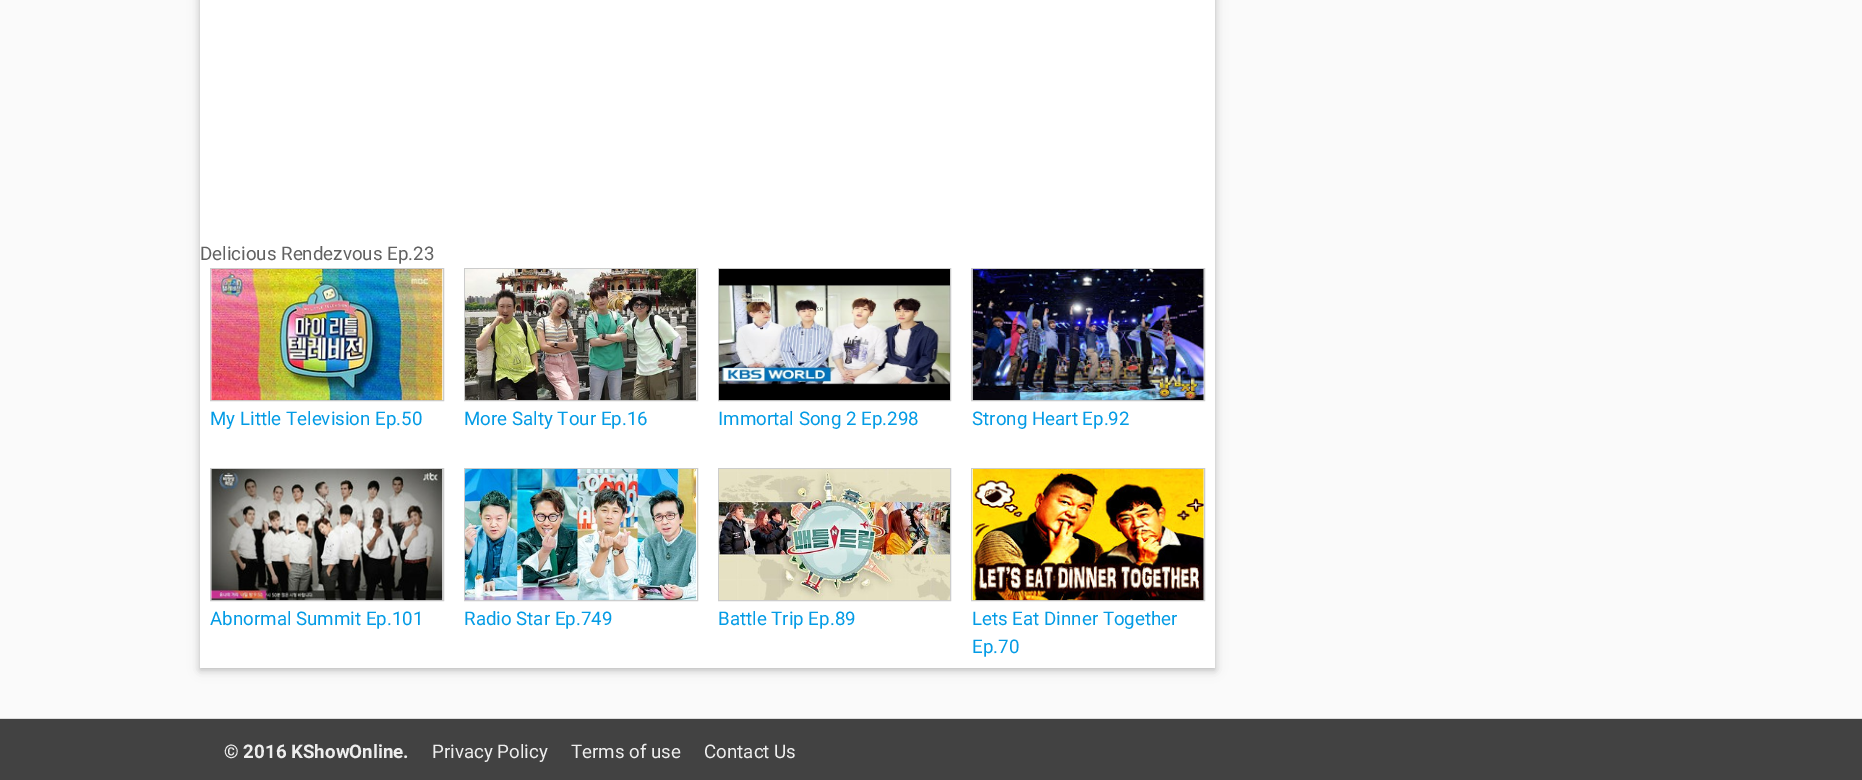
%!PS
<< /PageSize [1862 780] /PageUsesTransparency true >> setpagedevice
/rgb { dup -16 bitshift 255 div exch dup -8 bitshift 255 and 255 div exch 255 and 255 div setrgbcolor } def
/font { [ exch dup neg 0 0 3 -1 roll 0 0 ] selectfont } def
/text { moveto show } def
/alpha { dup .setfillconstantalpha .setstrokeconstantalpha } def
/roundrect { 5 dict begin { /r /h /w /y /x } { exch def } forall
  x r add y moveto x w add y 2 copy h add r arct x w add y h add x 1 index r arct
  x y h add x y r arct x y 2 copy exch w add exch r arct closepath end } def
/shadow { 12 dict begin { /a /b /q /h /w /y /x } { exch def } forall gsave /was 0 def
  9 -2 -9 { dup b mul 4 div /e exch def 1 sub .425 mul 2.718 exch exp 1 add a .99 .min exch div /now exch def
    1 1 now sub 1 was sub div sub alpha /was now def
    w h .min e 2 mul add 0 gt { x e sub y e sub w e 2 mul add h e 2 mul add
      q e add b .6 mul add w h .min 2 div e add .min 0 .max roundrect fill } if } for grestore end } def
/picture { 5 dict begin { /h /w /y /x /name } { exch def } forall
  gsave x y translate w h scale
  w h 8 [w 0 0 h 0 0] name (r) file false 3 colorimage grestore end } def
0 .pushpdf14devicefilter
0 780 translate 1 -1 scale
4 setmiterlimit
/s1 { /Roboto-Regular 18.75 font 16#616161 rgb } def
/s2 { /Roboto-Regular 18.75 font 16#039BE5 rgb } def
/s3 { /Roboto-Bold 18.75 font 16#EEEEEE rgb } def
/s4 { /Roboto-Regular 18.75 font 16#EEEEEE rgb } def
16#FAFAFA rgb
0 0 1862 780 rectfill
16#000000 rgb
200 -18 1015 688 0 6 0.12 shadow
200 -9 1015 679 0 3 0.16 shadow
16#FFFFFF rgb
200 0 1015 668 rectfill
s1
(Delicious Rendezvous Ep.23) 200 260 text
16#CCCCCC rgb
210.5 268.5 233 132 rectstroke
(pic1.raw) 211 269 232 132 picture
s2
(My Little Television Ep.50) 210 425 text
16#CCCCCC rgb
464.5 268.5 233 132 rectstroke
(pic2.raw) 465 269 232 132 picture
s2
(More Salty Tour Ep.16) 464 425 text
16#CCCCCC rgb
718.5 268.5 232 132 rectstroke
(pic3.raw) 718 269 232 132 picture
s2
(Immortal Song 2 Ep.298) 718 425 text
16#CCCCCC rgb
971.5 268.5 233 132 rectstroke
(pic4.raw) 972 269 232 132 picture
s2
(Strong Heart Ep.92) 972 425 text
16#CCCCCC rgb
210.5 468.5 233 132 rectstroke
(pic5.raw) 211 469 232 132 picture
s2
(Abnormal Summit Ep.101) 210 625 text
16#CCCCCC rgb
464.5 468.5 233 132 rectstroke
(pic6.raw) 465 469 232 132 picture
s2
(Radio Star Ep.749) 464 625 text
16#CCCCCC rgb
718.5 468.5 232 132 rectstroke
(pic7.raw) 718 469 232 131 picture
s2
(Battle Trip Ep.89) 718 625 text
16#CCCCCC rgb
971.5 468.5 233 132 rectstroke
(pic8.raw) 972 469 232 132 picture
s2
(Lets Eat Dinner Together) 972 625 text
(Ep.70) 972 653 text
16#424242 rgb
0 719 1862 61 rectfill
16#DDDDDD rgb
0 718 1862 1 rectfill
s3
(© 2016 KShowOnline.) 224 758 text
s4
(Privacy Policy) 432 758 text
(Terms of use) 571 758 text
(Contact Us) 704 758 text
.poppdf14devicefilter showpage
